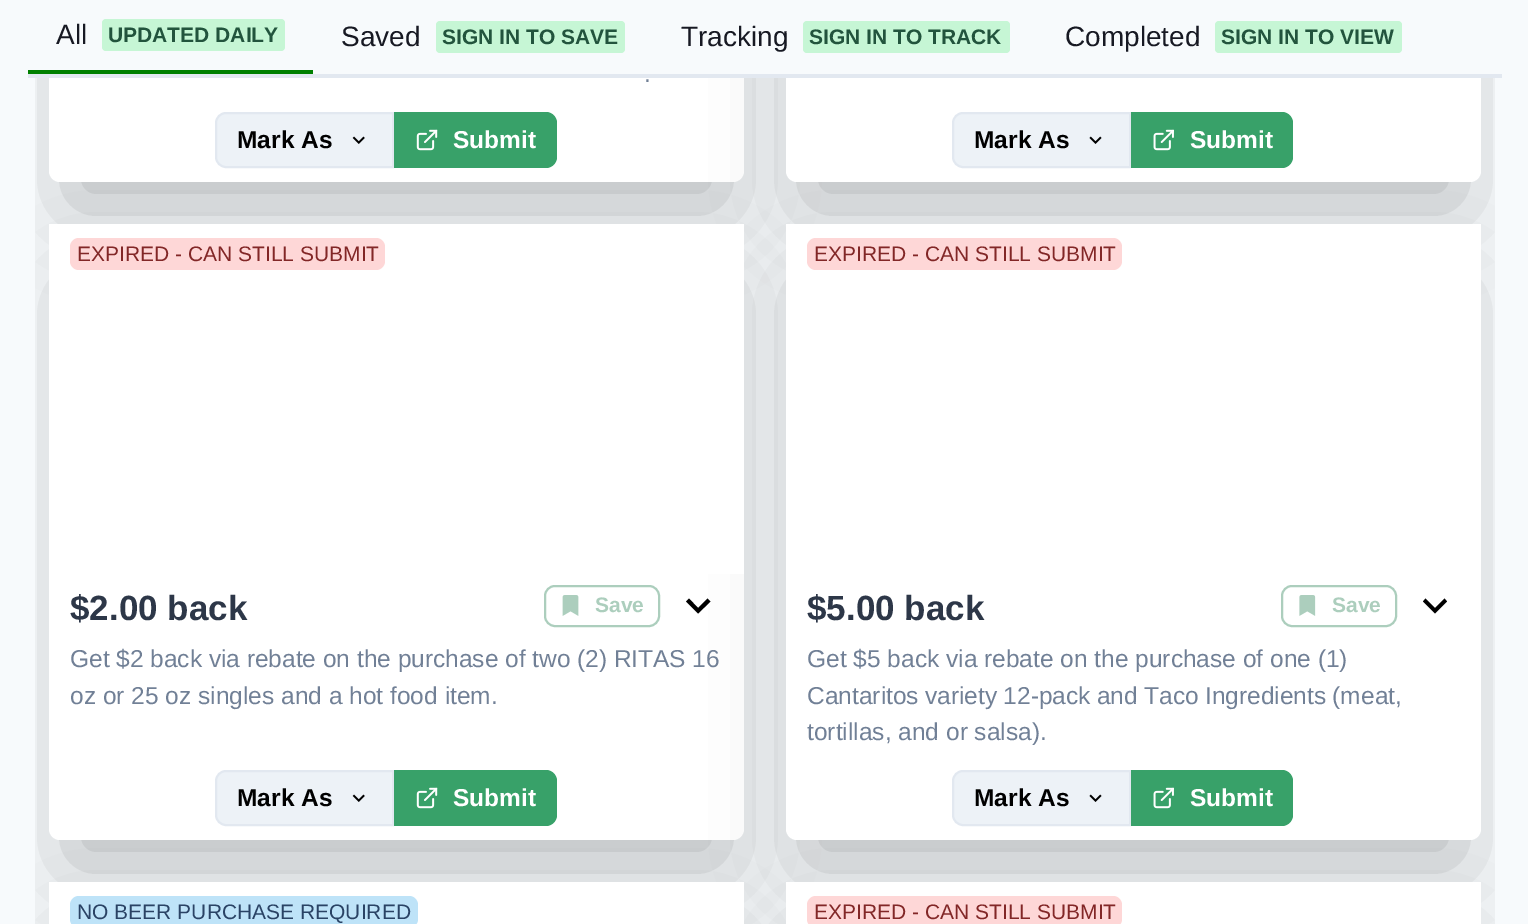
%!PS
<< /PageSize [1528 924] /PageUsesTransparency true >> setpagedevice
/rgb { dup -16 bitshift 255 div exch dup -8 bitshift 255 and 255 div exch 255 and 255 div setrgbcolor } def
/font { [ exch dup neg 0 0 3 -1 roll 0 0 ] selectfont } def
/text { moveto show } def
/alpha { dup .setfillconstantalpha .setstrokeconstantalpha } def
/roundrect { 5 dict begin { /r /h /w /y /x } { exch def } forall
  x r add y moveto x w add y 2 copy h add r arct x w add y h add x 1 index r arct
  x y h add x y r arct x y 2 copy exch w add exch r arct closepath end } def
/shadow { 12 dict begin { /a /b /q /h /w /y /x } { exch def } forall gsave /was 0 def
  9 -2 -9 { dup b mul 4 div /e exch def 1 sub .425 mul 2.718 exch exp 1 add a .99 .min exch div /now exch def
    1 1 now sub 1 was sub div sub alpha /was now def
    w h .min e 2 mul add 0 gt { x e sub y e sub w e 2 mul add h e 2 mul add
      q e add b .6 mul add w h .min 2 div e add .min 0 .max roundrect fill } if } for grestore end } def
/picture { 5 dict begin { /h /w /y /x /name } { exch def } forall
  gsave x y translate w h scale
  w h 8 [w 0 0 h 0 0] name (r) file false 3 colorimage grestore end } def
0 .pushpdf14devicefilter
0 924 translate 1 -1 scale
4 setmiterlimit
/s1 { /LiberationSans-Regular 28 font 16#171923 rgb } def
/s2 { /LiberationSans-Bold 21 font 16#22543D rgb } def
/s3 { /LiberationSans-Regular 24.5 font 16#718096 rgb } def
/s4 { /LiberationSans-Bold 24.5 font 16#000000 rgb } def
/s5 { /LiberationSans-Bold 24.5 font 16#FFFFFF rgb } def
/s6 { /LiberationSans-Regular 21 font 16#822727 rgb } def
/s7 { /LiberationSans-Bold 35 font 16#2D3748 rgb } def
/s8 { /LiberationSans-Bold 21 font 16#ACCEBD rgb } def
/s9 { /LiberationSans-Regular 21 font 16#2A4365 rgb } def
16#F7FAFC rgb
0 0 1528 924 rectfill
gsave
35 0 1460 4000 rectclip
16#000000 rgb
70 -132 653 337 0 44 0.25 shadow
grestore
16#FFFFFF rgb
49 -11 695 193 11 roundrect fill
gsave
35 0 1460 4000 rectclip
16#000000 rgb
807 -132 653 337 0 44 0.25 shadow
grestore
786 -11 695 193 11 roundrect fill
16#F7FAFC rgb
35 0 1460 74 rectfill
16#E2E8F0 rgb
28 74 1474 4 rectfill
16#008000 rgb
28 70 285 4 rectfill
s1
(All) 56 44 text
16#C6F6D5 rgb
102 19 183 32 4 roundrect fill
s2
(UPDATED DAILY) 108 42 text
s1
(Saved) 341 46 text
16#C6F6D5 rgb
436 21 189 32 4 roundrect fill
s2
(SIGN IN TO SAVE) 442 44 text
s1
(Tracking) 681 46 text
16#C6F6D5 rgb
803 21 207 32 4 roundrect fill
s2
(SIGN IN TO TRACK) 809 44 text
s1
(Completed) 1065 46 text
16#C6F6D5 rgb
1215 21 187 32 4 roundrect fill
s2
(SIGN IN TO VIEW) 1221 44 text
s3
(.) 644 82 text
gsave
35 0 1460 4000 rectclip
16#000000 rgb
70 289 653 574 0 44 0.25 shadow
grestore
16#EDF2F7 rgb
226 113 moveto 393 113 lineto 393 167 lineto 226 167 lineto 220.5 167 216 162.5 216 157 curveto 216 123 lineto 216 117.5 220.5 113 226 113 curveto closepath gsave fill grestore
16#E2E8F0 rgb
2 setlinewidth
stroke
s4
(Mark As) 237 148 text
(pic1.raw) 352 136 13 8 picture
16#38A169 rgb
394 112 moveto 546 112 lineto 552 112 557 117 557 123 curveto 557 157 lineto 557 163 552 168 546 168 curveto 394 168 lineto closepath fill
(pic2.raw) 416 129 22 22 picture
s5
(Submit) 453 148 text
49 224 695 616 11 roundrect fill
gsave
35 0 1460 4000 rectclip
16#000000 rgb
807 289 653 574 0 44 0.25 shadow
grestore
16#EDF2F7 rgb
963 113 moveto 1130 113 lineto 1130 167 lineto 963 167 lineto 957.5 167 953 162.5 953 157 curveto 953 123 lineto 953 117.5 957.5 113 963 113 curveto closepath gsave fill grestore
16#E2E8F0 rgb
stroke
s4
(Mark As) 974 148 text
(pic3.raw) 1089 136 13 8 picture
16#38A169 rgb
1131 112 moveto 1282 112 lineto 1288 112 1293 117 1293 123 curveto 1293 157 lineto 1293 163 1288 168 1282 168 curveto 1131 168 lineto closepath fill
(pic4.raw) 1153 129 21 22 picture
s5
(Submit) 1190 148 text
49 224 695 350 rectfill
16#FED7D7 rgb
70 238 315 32 9 roundrect fill
s6
(EXPIRED - CAN STILL SUBMIT) 77 261 text
s7
($2.00 back) 70 620 text
16#ACCEBD rgb
545 586 114 40 10 roundrect stroke
(pic5.raw) 562 595 17 21 picture
s8
(Save) 595 612 text
16#000000 rgb
707.5 598.5 moveto 698 608 lineto 689 598.5 lineto 686 601.5 lineto 698 613.5 lineto 710.5 601.5 lineto closepath fill
/LiberationSans-Regular 24.5 font
16#718096 rgb
70 667 moveto -0.1 0 32 (Get $2 back via rebate on the purchase of two \(2\) RITAS 16) widthshow
(oz or 25 oz singles and a hot food item.) 70 704 text
16#FFFFFF rgb
786 224 695 616 11 roundrect fill
gsave
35 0 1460 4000 rectclip
16#000000 rgb
70 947 653 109 0 44 0.25 shadow
grestore
16#EDF2F7 rgb
226 771 moveto 393 771 lineto 393 825 lineto 226 825 lineto 220.5 825 216 820.5 216 815 curveto 216 781 lineto 216 775.5 220.5 771 226 771 curveto closepath gsave fill grestore
16#E2E8F0 rgb
stroke
s4
(Mark As) 237 806 text
(pic1.raw) 352 794 13 8 picture
16#38A169 rgb
394 770 moveto 546 770 lineto 552 770 557 775 557 781 curveto 557 815 lineto 557 821 552 826 546 826 curveto 394 826 lineto closepath fill
(pic2.raw) 416 787 22 22 picture
s5
(Submit) 453 806 text
786 224 695 9 rectfill
16#FED7D7 rgb
807 238 315 32 9 roundrect fill
s6
(EXPIRED - CAN STILL SUBMIT) 814 261 text
s7
($5.00 back) 807 620 text
16#ACCEBD rgb
1282 586 114 40 10 roundrect stroke
(pic6.raw) 1299 595 17 21 picture
s8
(Save) 1332 612 text
16#000000 rgb
1444.5 598.5 moveto 1435 608 lineto 1425.5 598.5 lineto 1423 601.5 lineto 1435 613.5 lineto 1447 601.5 lineto closepath fill
s3
(Get $5 back via rebate on the purchase of one \(1\)) 807 667 text
807 704 moveto -0.5 0 32 (Cantaritos variety 12-pack and Taco Ingredients \(meat,) widthshow
(tortillas, and or salsa\).) 807 740 text
gsave
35 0 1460 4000 rectclip
16#000000 rgb
807 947 653 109 0 44 0.25 shadow
grestore
16#EDF2F7 rgb
963 771 moveto 1130 771 lineto 1130 825 lineto 963 825 lineto 957.5 825 953 820.5 953 815 curveto 953 781 lineto 953 775.5 957.5 771 963 771 curveto closepath gsave fill grestore
16#E2E8F0 rgb
stroke
s4
(Mark As) 974 806 text
(pic3.raw) 1089 794 13 8 picture
16#38A169 rgb
1131 770 moveto 1282 770 lineto 1288 770 1293 775 1293 781 curveto 1293 815 lineto 1293 821 1288 826 1282 826 curveto 1131 826 lineto closepath fill
(pic4.raw) 1153 787 21 22 picture
s5
(Submit) 1190 806 text
49 882 695 42 rectfill
16#BEE3F8 rgb
70 896 348 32 9 roundrect fill
s9
(NO BEER PURCHASE REQUIRED) 77 919 text
16#FFFFFF rgb
786 882 695 42 rectfill
16#FED7D7 rgb
807 896 315 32 9 roundrect fill
s6
(EXPIRED - CAN STILL SUBMIT) 814 919 text
.poppdf14devicefilter showpage
